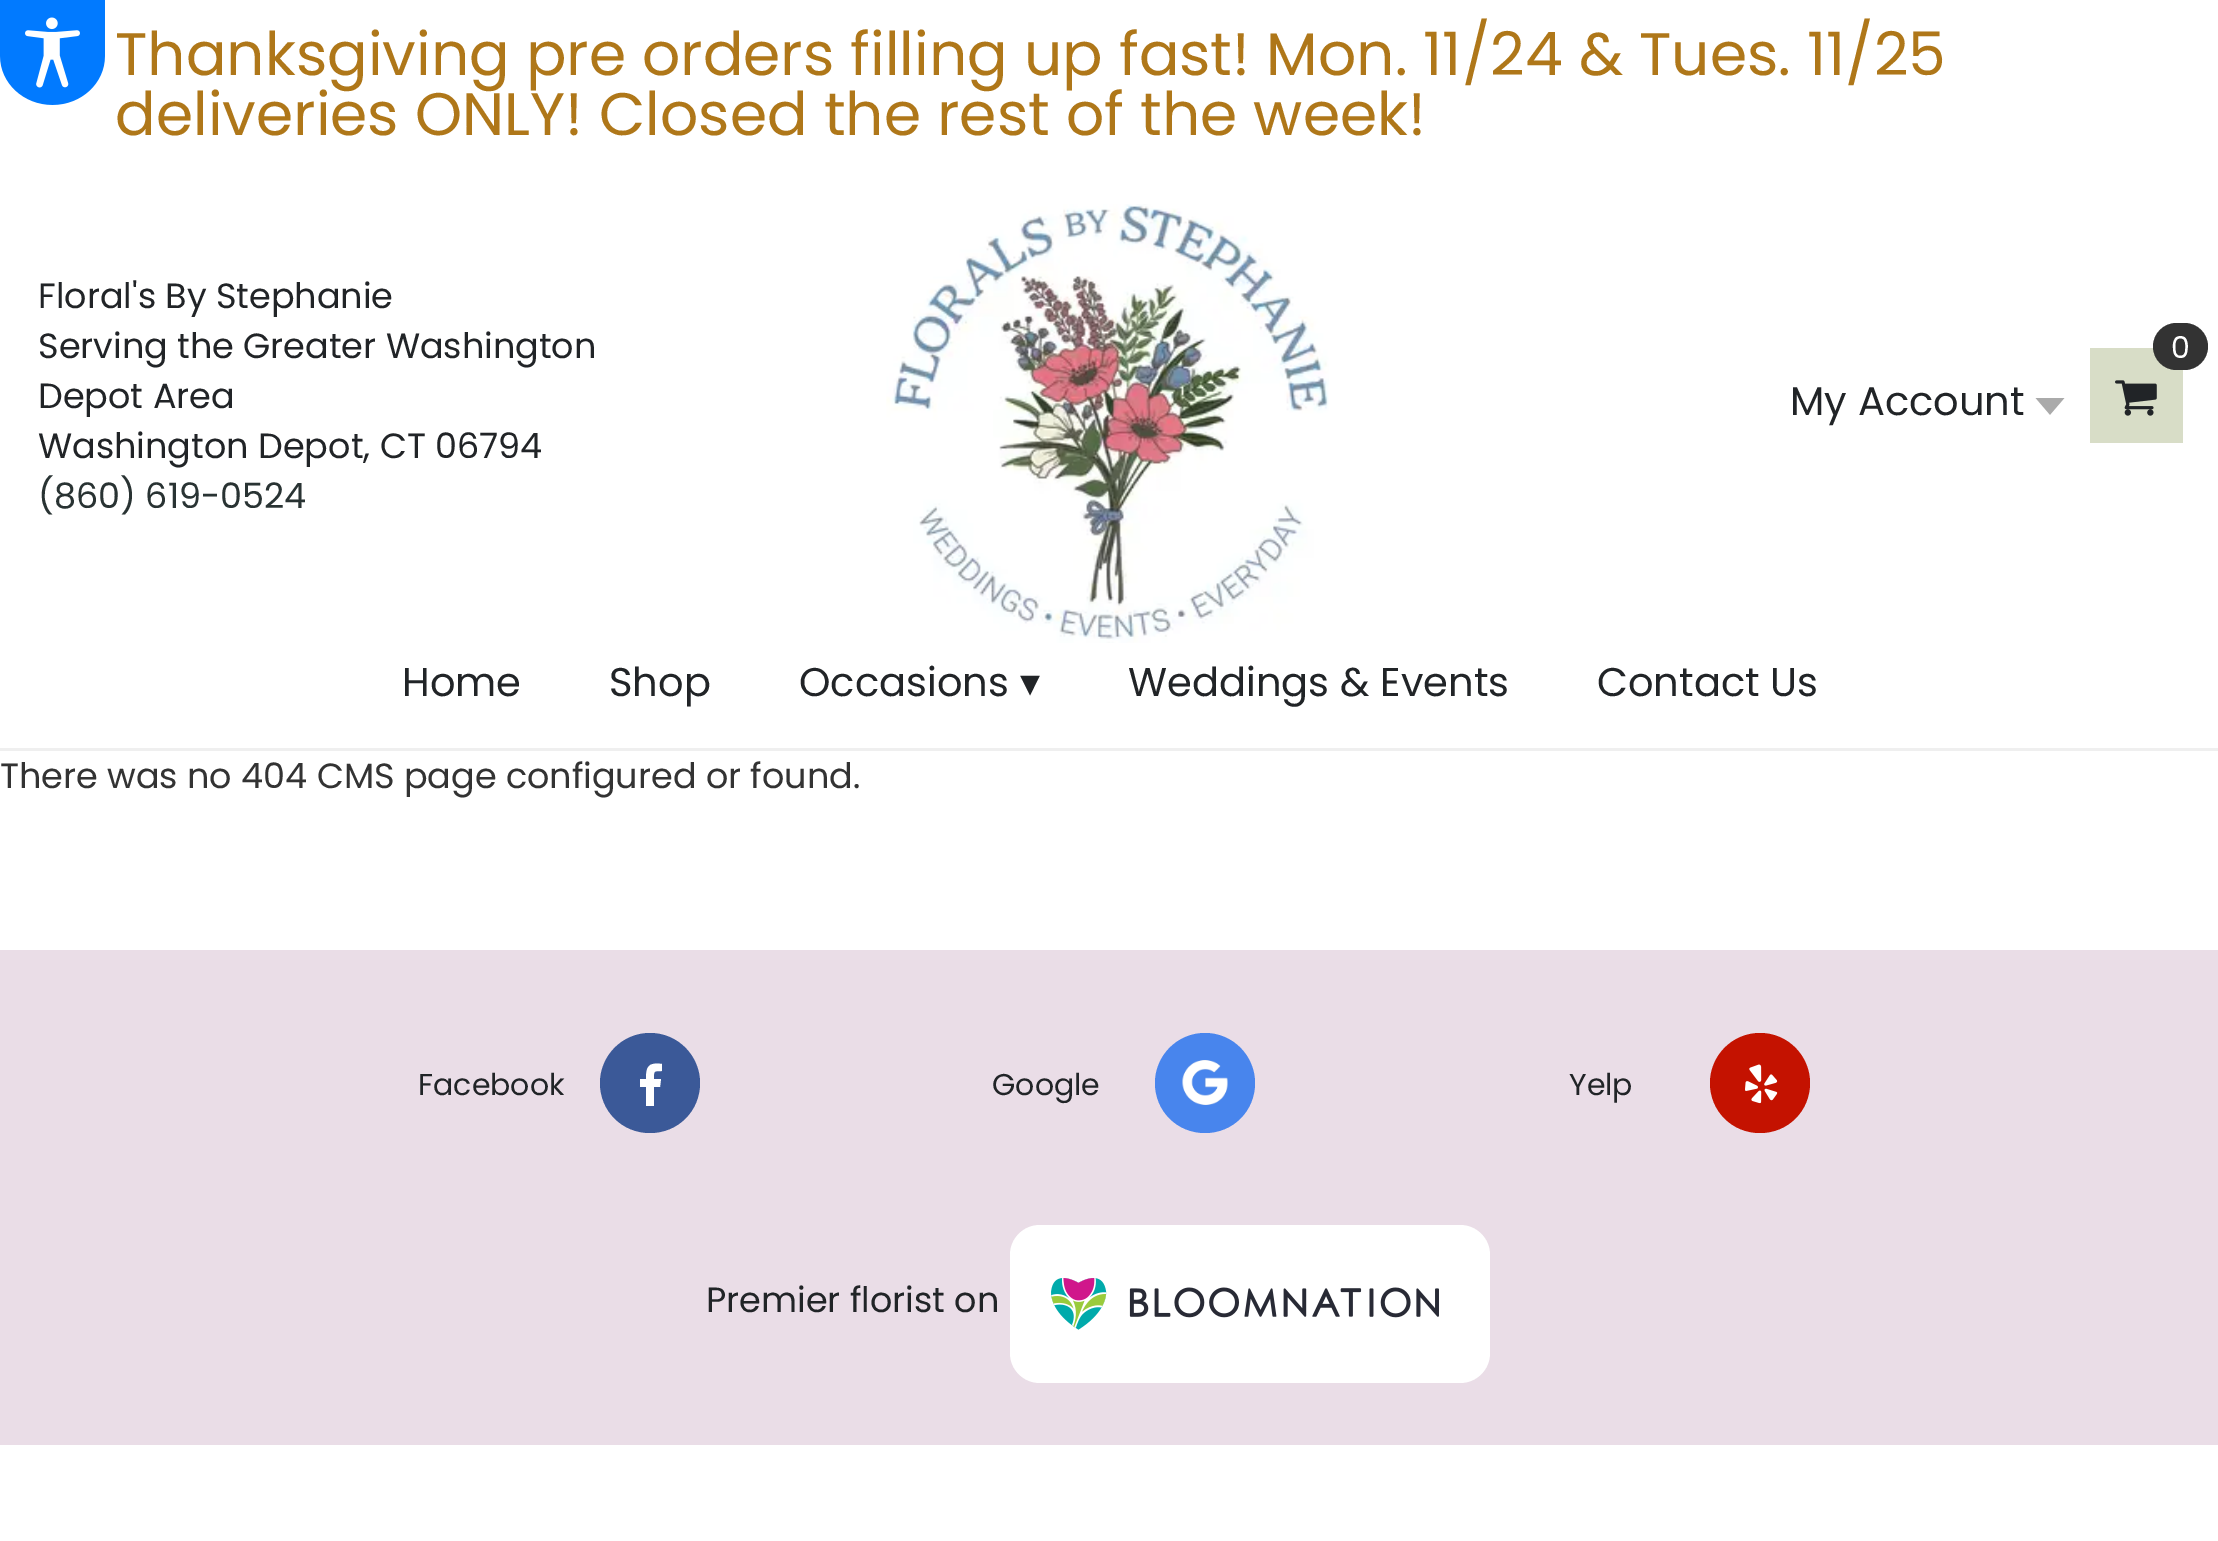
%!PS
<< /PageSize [2218 1541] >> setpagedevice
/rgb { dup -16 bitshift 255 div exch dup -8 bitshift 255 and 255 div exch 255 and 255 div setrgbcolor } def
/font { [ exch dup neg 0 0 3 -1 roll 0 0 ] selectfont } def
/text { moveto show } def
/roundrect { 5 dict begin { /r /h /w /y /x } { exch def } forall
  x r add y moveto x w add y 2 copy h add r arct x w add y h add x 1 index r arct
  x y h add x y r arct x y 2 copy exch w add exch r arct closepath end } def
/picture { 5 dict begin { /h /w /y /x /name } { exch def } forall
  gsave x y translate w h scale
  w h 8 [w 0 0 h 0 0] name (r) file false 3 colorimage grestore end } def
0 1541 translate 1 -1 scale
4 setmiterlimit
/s1 { /Poppins-Regular 60 font 16#AF7719 rgb } def
/s2 { /Poppins-Regular 35 font 16#212427 rgb } def
/s3 { /Poppins-Regular 35 font 16#293333 rgb } def
/s4 { /Poppins-Regular 30 font 16#FFFFFF rgb } def
/s5 { /Poppins-Regular 40 font 16#212427 rgb } def
/s6 { /DejaVuSans-Regular 40 font 16#212427 rgb } def
/s7 { /Poppins-Regular 35 font 16#333333 rgb } def
/s8 { /Poppins-Regular 30 font 16#212427 rgb } def
16#FFFFFF rgb
0 0 2218 1541 rectfill
(pic1.raw) 0 0 105 105 picture
s1
(Thanksgiving pre orders filling up fast! Mon. 11/24 & Tues. 11/25) 115 75 text
(deliveries ONLY! Closed the rest of the week!) 115 135 text
16#EFEFEF rgb
0 748 2218 3 rectfill
s2
(Floral's By Stephanie) 38 308 text
(Serving the Greater Washington) 38 358 text
(Depot Area) 38 408 text
(Washington Depot, CT 06794) 38 458 text
s3
(\(860\) 619-0524) 38 508 text
(pic2.raw) 886 204 443 439 picture
16#D8DDC7 rgb
2090 348 93 95 rectfill
16#333333 rgb
2153 323 55 47 23.5 roundrect fill
s4
(0) 2171 358 text
(pic3.raw) 2115 380 42 36 picture
s5
(My Account) 1790 415 text
(pic4.raw) 2035 398 30 17 picture
(Home) 402 696 text
(Shop) 609 696 text
(Occasions) 799 696 text
s6
(▾) 1020 696 text
s5
(Weddings & Events) 1128 696 text
(Contact Us) 1597 696 text
s7
(There was no 404 CMS page configured or found.) 0 788 text
16#EADDE7 rgb
0 950 2218 495 rectfill
s8
(Facebook) 418 1095 text
16#3B5998 rgb
700 1083 moveto 700 1056 678 1033 650 1033 curveto 622 1033 600 1056 600 1083 curveto 600 1111 622 1133 650 1133 curveto 678 1133 700 1111 700 1083 curveto closepath fill
16#FFFFFF rgb
662 1064 moveto 648 1062 646 1067 646 1079 curveto 640 1079 lineto 640 1087 lineto 646 1087 lineto 646 1106 lineto 654 1106 lineto 654 1087 lineto 660 1087 lineto 661 1079 lineto 654 1079 lineto 654 1071 653 1071 662 1071 curveto closepath fill
s8
(Google) 992 1095 text
16#4885ED rgb
1255 1083 moveto 1255 1056 1233 1033 1205 1033 curveto 1177 1033 1155 1056 1155 1083 curveto 1155 1111 1177 1133 1205 1133 curveto 1233 1133 1255 1111 1255 1083 curveto closepath fill
(pic5.raw) 1182 1060 46 45 picture
s8
(Yelp) 1569 1095 text
16#C41200 rgb
1810 1083 moveto 1810 1056 1788 1033 1760 1033 curveto 1732 1033 1710 1056 1710 1083 curveto 1710 1111 1732 1133 1760 1133 curveto 1788 1133 1810 1111 1810 1083 curveto closepath fill
(pic6.raw) 1745 1064 33 40 picture
s2
(Premier florist on) 706 1312 text
16#FFFFFF rgb
1010 1225 480 158 30 roundrect fill
(pic7.raw) 1051 1278 388 52 picture
showpage
